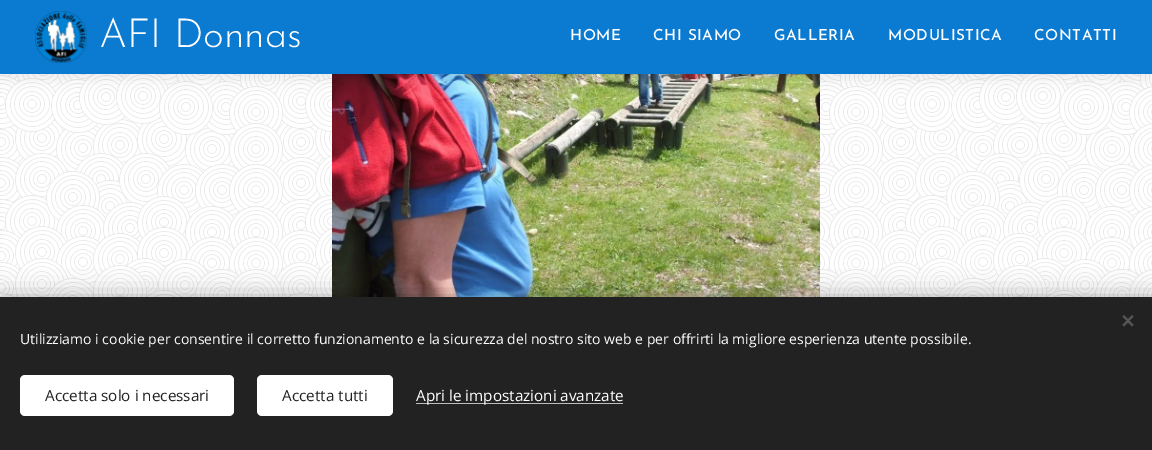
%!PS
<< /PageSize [1152 450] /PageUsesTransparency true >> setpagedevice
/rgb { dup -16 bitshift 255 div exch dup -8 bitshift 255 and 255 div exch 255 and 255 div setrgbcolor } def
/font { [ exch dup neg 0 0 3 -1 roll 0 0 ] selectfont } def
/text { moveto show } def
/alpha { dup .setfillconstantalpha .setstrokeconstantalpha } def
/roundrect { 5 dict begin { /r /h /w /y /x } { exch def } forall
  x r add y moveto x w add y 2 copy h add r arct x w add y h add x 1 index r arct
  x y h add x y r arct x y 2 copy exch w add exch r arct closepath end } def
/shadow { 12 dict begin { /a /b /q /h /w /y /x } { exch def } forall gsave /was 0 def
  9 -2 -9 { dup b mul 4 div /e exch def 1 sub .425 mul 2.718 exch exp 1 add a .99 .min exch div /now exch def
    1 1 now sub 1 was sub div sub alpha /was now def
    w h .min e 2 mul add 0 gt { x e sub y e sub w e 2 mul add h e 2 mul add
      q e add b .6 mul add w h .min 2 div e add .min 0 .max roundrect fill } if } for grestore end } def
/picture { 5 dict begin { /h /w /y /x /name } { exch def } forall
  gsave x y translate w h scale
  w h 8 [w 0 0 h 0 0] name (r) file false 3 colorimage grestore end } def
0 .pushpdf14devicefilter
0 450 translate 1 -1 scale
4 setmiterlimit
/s1 { /JosefinSans-Light 40 font 16#FFFFFF rgb } def
/s2 { /OpenSans-Regular 14 font 16#FFFFFF rgb } def
/s3 { /OpenSans-Regular 15.25 font 16#222222 rgb } def
/s4 { /OpenSans-Regular 15.25 font 16#FFFFFF rgb } def
16#FFFFFF rgb
0 0 1152 450 rectfill
(pic2.raw) 0 74 1152 223 picture
(pic3.raw) 332 74 488 223 picture
16#000000 rgb
0 5 1152 74 0 7.5 0.07 shadow
16#0B7AD1 rgb
0 0 1152 74 rectfill
(pic1.raw) 35 11 52 52 picture
s1
(AFI Donnas) 99 47 text
/JosefinSans-Medium 15.25 font
570 40 moveto 0.6 0 (HOME) ashow
653 40 moveto 0.6 0 (CHI SIAMO) ashow
774 40 moveto 0.6 0 (GALLERIA) ashow
888 40 moveto 0.6 0 (MODULISTICA) ashow
1034 40 moveto 0.6 0 (CONTATTI) ashow
16#000000 rgb
0 297 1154 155 0 12.5 0.33 shadow
16#222222 rgb
0 297 1152 153 rectfill
16#555555 rgb
1122.5 325 moveto 1132 315 lineto 1133.5 316.5 lineto 1124 326.5 lineto closepath fill
1124 315 moveto 1133.5 325 lineto 1132 326.5 lineto 1122.5 316.5 lineto closepath fill
s2
(Utilizziamo i cookie per consentire il corretto funzionamento e la sicurezza del nostro sito web e per offrirti la migliore esperienza utente possibile.) 20 344 text
20 375 214 41 5 roundrect fill
s3
(Accetta solo i necessari) 45 401 text
16#FFFFFF rgb
257 375 136 41 5 roundrect fill
s3
(Accetta tutti) 282 401 text
16#BDBDBD rgb
416 403 207 1 rectfill
s4
(Apri le impostazioni avanzate) 416 401 text
.poppdf14devicefilter showpage
